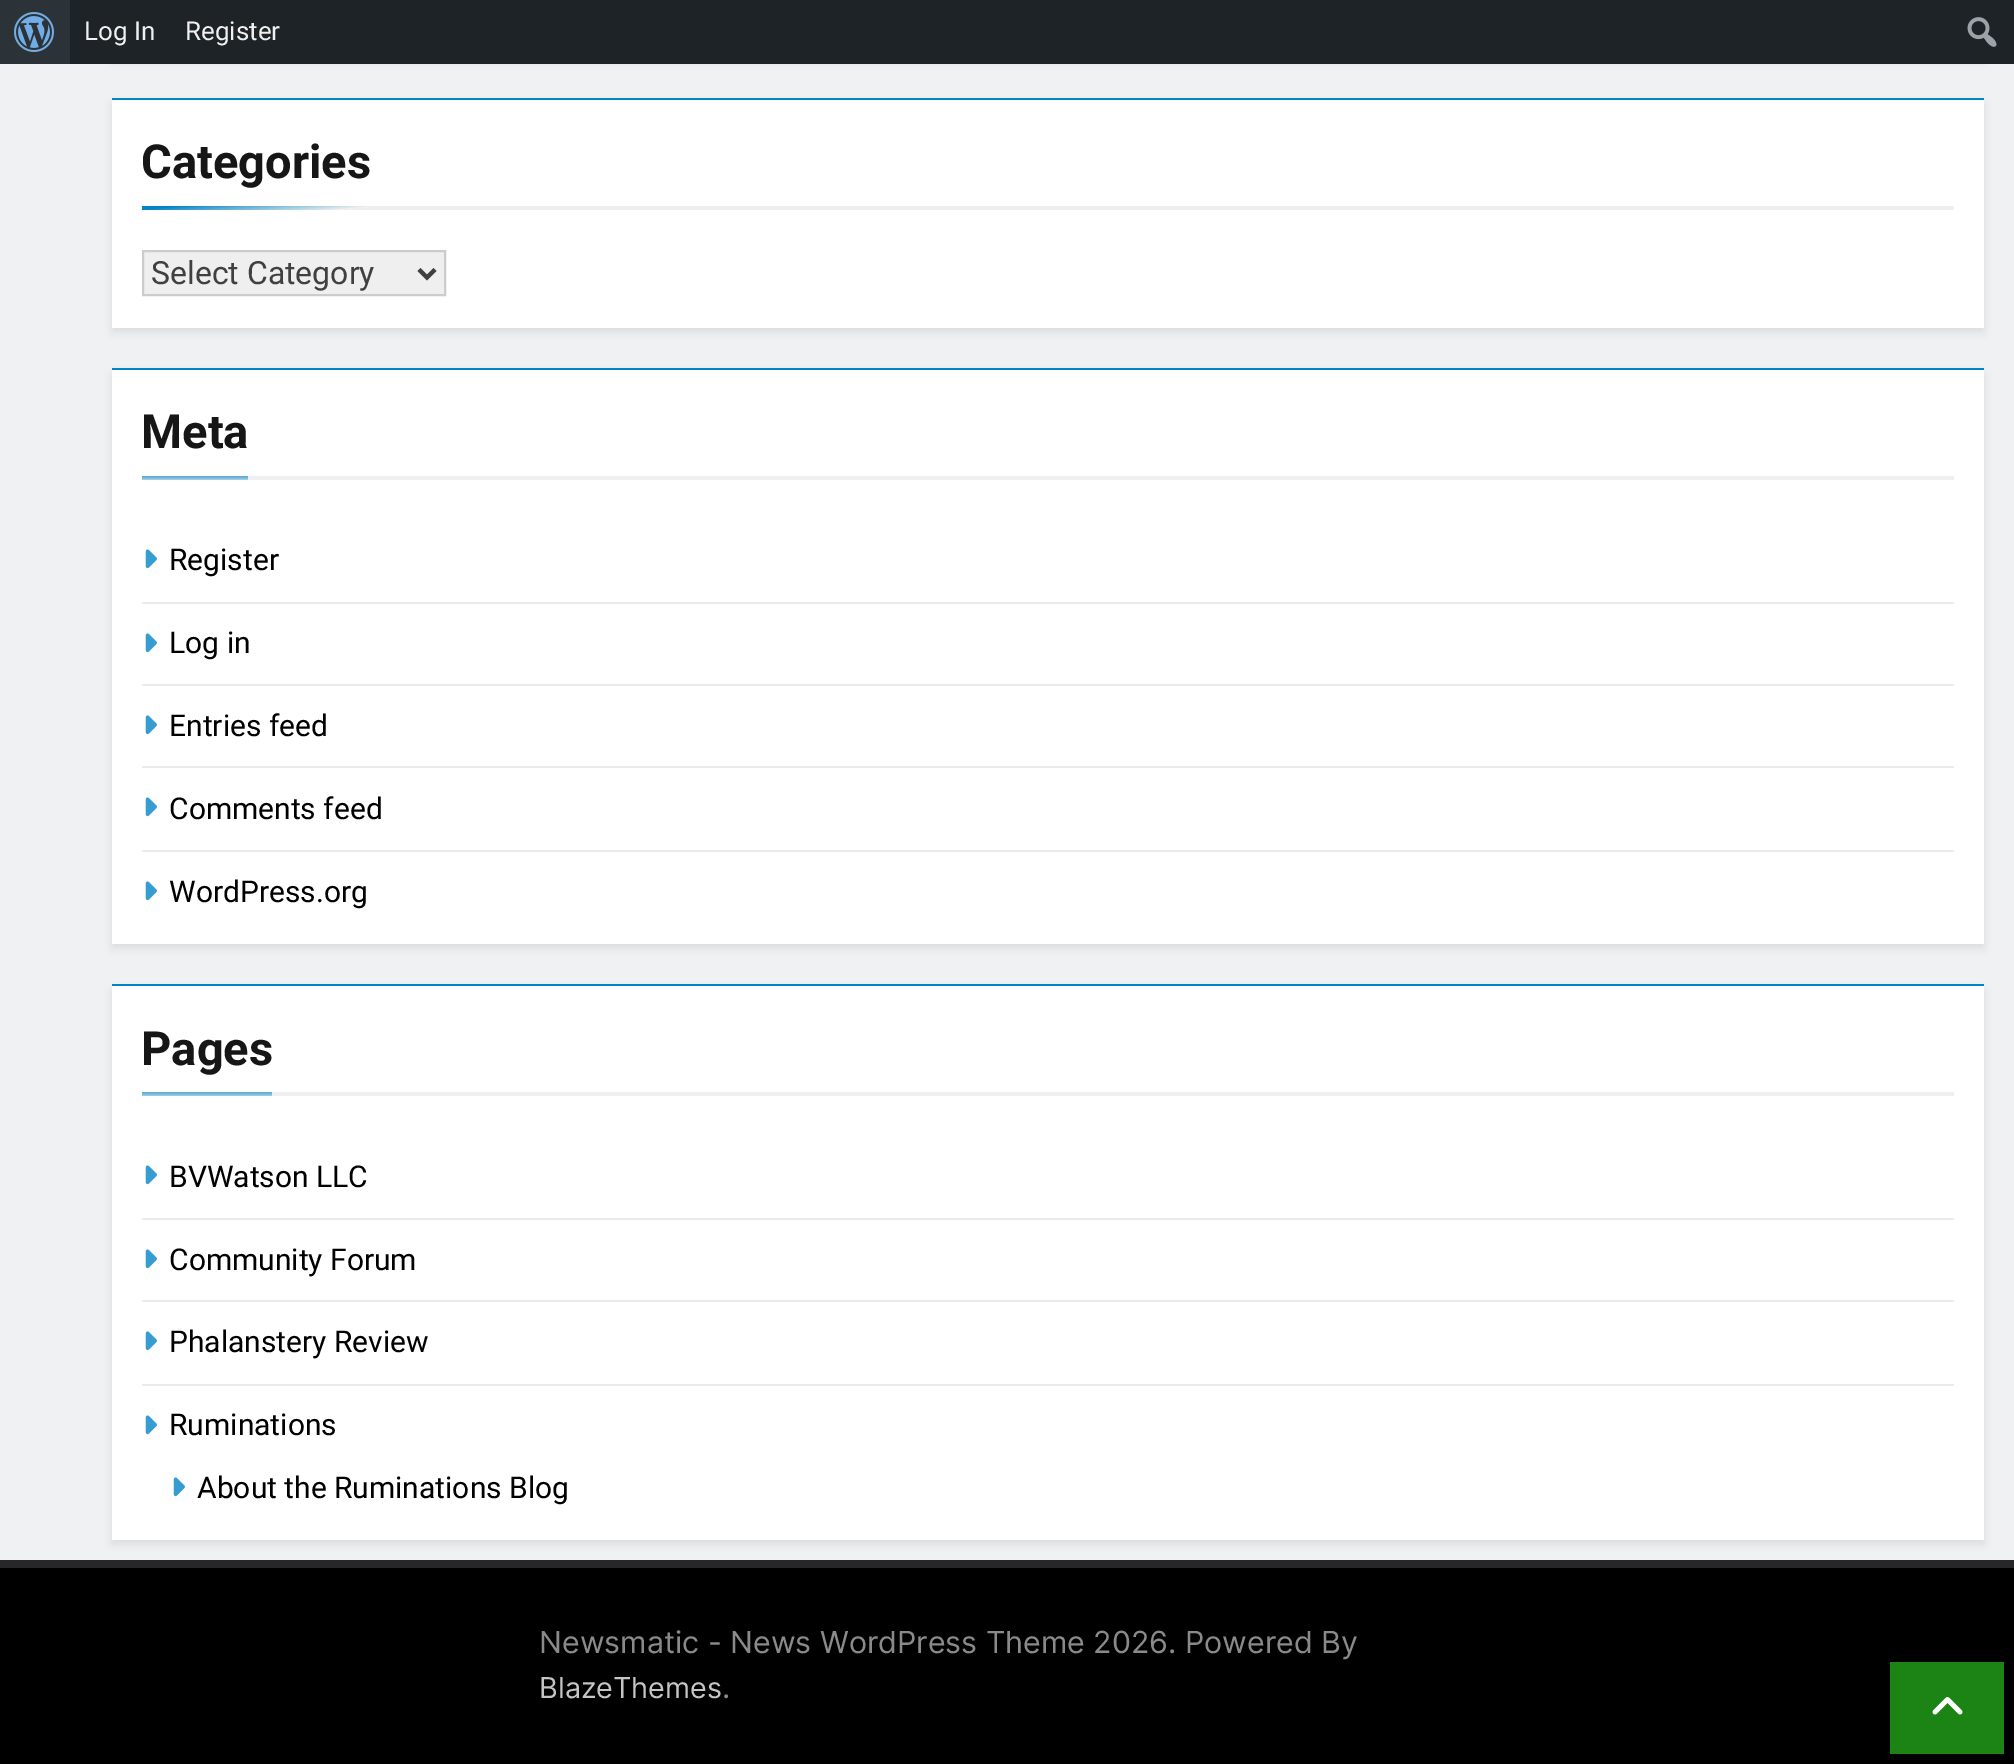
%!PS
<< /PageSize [2014 1764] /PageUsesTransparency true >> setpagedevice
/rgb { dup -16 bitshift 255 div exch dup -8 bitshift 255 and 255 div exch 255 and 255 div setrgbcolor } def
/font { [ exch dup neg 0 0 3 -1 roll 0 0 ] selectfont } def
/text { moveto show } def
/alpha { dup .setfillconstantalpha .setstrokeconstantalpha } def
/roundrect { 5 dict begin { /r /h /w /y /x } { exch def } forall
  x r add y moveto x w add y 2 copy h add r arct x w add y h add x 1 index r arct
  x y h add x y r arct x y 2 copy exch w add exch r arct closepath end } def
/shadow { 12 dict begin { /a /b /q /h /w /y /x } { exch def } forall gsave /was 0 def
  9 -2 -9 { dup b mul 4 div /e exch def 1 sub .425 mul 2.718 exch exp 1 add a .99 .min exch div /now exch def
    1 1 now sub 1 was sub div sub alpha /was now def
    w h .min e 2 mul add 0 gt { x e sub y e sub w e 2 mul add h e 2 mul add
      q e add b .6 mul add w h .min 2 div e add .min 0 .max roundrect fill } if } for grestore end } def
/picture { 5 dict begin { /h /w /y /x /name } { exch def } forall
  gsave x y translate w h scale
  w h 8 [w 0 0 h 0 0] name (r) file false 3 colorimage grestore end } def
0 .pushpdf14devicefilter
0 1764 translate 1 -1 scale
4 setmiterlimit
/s1 { /Roboto-Regular 26 font 16#F0F0F1 rgb } def
/s2 { /Roboto-Bold 47 font 16#161616 rgb } def
/s3 { /Roboto-Regular 32 font 16#404040 rgb } def
/s4 { /Roboto-Regular 30 font 16#000000 rgb } def
/s5 { /Inter-Regular 30.4 font 16#8A8A8C rgb } def
/s6 { /Inter-Regular 28.75 font 16#C5C5C5 rgb } def
16#F0F1F2 rgb
0 0 2014 1764 rectfill
16#000000 rgb
112 -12 1872 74 0 4 0.08 shadow
16#1D2327 rgb
70 0 1944 64 rectfill
16#2C3338 rgb
0 0 70 64 rectfill
(pic1.raw) 14 12 40 40 picture
s1
(Log In) 84 40 text
(Register) 185 40 text
(pic2.raw) 1967 17 30 30 picture
16#000000 rgb
112 104 1872 228 0 4 0.08 shadow
16#FFFFFF rgb
112 100 1872 228 rectfill
16#0284C7 rgb
112 98 1872 2 rectfill
16#F0F0F0 rgb
370 206 1584 4 rectfill
s2
(Categories) 141 178 text
gsave 142 206 moveto 370 206 lineto 370 210 lineto 142 210 lineto closepath clip newpath
<< /ShadingType 2 /ColorSpace /DeviceRGB /Coords [255 198 257 218] /Extend [true true] /Function << /FunctionType 2 /Domain [0 1] /C0 [0.008 0.518 0.78] /C1 [0.941 0.941 0.941] /N 1 >> >> shfill grestore
16#EFEFEF rgb
143 251 moveto 445 251 lineto 445 295 lineto 143 295 lineto closepath gsave fill grestore
16#CCCCCC rgb
2 setlinewidth
stroke
16#404040 rgb
4 setlinewidth
419 269.5 moveto 427 277.5 lineto 435 269.5 lineto stroke
s3
(Select Category) 151 284 text
16#000000 rgb
112 374 1872 574 0 4 0.08 shadow
16#FFFFFF rgb
112 370 1872 574 rectfill
16#0284C7 rgb
112 368 1872 2 rectfill
16#F0F0F0 rgb
248 476 1706 4 rectfill
s2
(Meta) 141 448 text
gsave 142 476 moveto 248 476 lineto 248 480 lineto 142 480 lineto closepath clip newpath
<< /ShadingType 2 /ColorSpace /DeviceRGB /Coords [195 472 195 484] /Extend [true true] /Function << /FunctionType 2 /Domain [0 1] /C0 [0.008 0.518 0.78] /C1 [0.941 0.941 0.941] /N 1 >> >> shfill grestore
16#EAEAEA rgb
142 602 1812 2 rectfill
(pic3.raw) 145 549 12 20 picture
s4
(Register) 169 570 text
16#EAEAEA rgb
142 684 1812 2 rectfill
(pic3.raw) 145 633 12 20 picture
s4
(Log in) 169 653 text
16#EAEAEA rgb
142 766 1812 2 rectfill
(pic3.raw) 145 715 12 20 picture
s4
(Entries feed) 169 736 text
16#EAEAEA rgb
142 850 1812 2 rectfill
(pic3.raw) 145 797 12 20 picture
s4
(Comments feed) 169 819 text
(pic3.raw) 145 881 12 20 picture
(WordPress.org) 169 902 text
112 990 1872 554 0 4 0.08 shadow
16#FFFFFF rgb
112 986 1872 554 rectfill
16#0284C7 rgb
112 984 1872 2 rectfill
16#F0F0F0 rgb
272 1092 1682 4 rectfill
s2
(Pages) 141 1065 text
gsave 142 1092 moveto 272 1092 lineto 272 1096 lineto 142 1096 lineto closepath clip newpath
<< /ShadingType 2 /ColorSpace /DeviceRGB /Coords [207 1087 207 1101] /Extend [true true] /Function << /FunctionType 2 /Domain [0 1] /C0 [0.008 0.518 0.78] /C1 [0.941 0.941 0.941] /N 1 >> >> shfill grestore
16#EAEAEA rgb
142 1218 1812 2 rectfill
(pic3.raw) 145 1165 12 20 picture
s4
(BVWatson LLC) 169 1187 text
16#EAEAEA rgb
142 1300 1812 2 rectfill
(pic3.raw) 145 1249 12 20 picture
s4
(Community Forum) 169 1270 text
16#EAEAEA rgb
142 1384 1812 2 rectfill
(pic3.raw) 145 1331 12 20 picture
s4
(Phalanstery Review) 169 1352 text
(pic3.raw) 145 1415 12 20 picture
(Ruminations) 169 1435 text
(pic3.raw) 173 1477 12 20 picture
(About the Ruminations Blog) 197 1498 text
16#27272A rgb
0 1560 2014 8 rectfill
16#000000 rgb
0 1568 2014 196 rectfill
s5
(Newsmatic - News WordPress Theme 2026.) 539 1653 text
(Powered By) 1185 1653 text
s6
(BlazeThemes) 539 1698 text
s5
(.) 722 1698 text
16#1B8415 rgb
1890 1662 114 92 rectfill
(pic4.raw) 1932 1697 31 18 picture
.poppdf14devicefilter showpage
